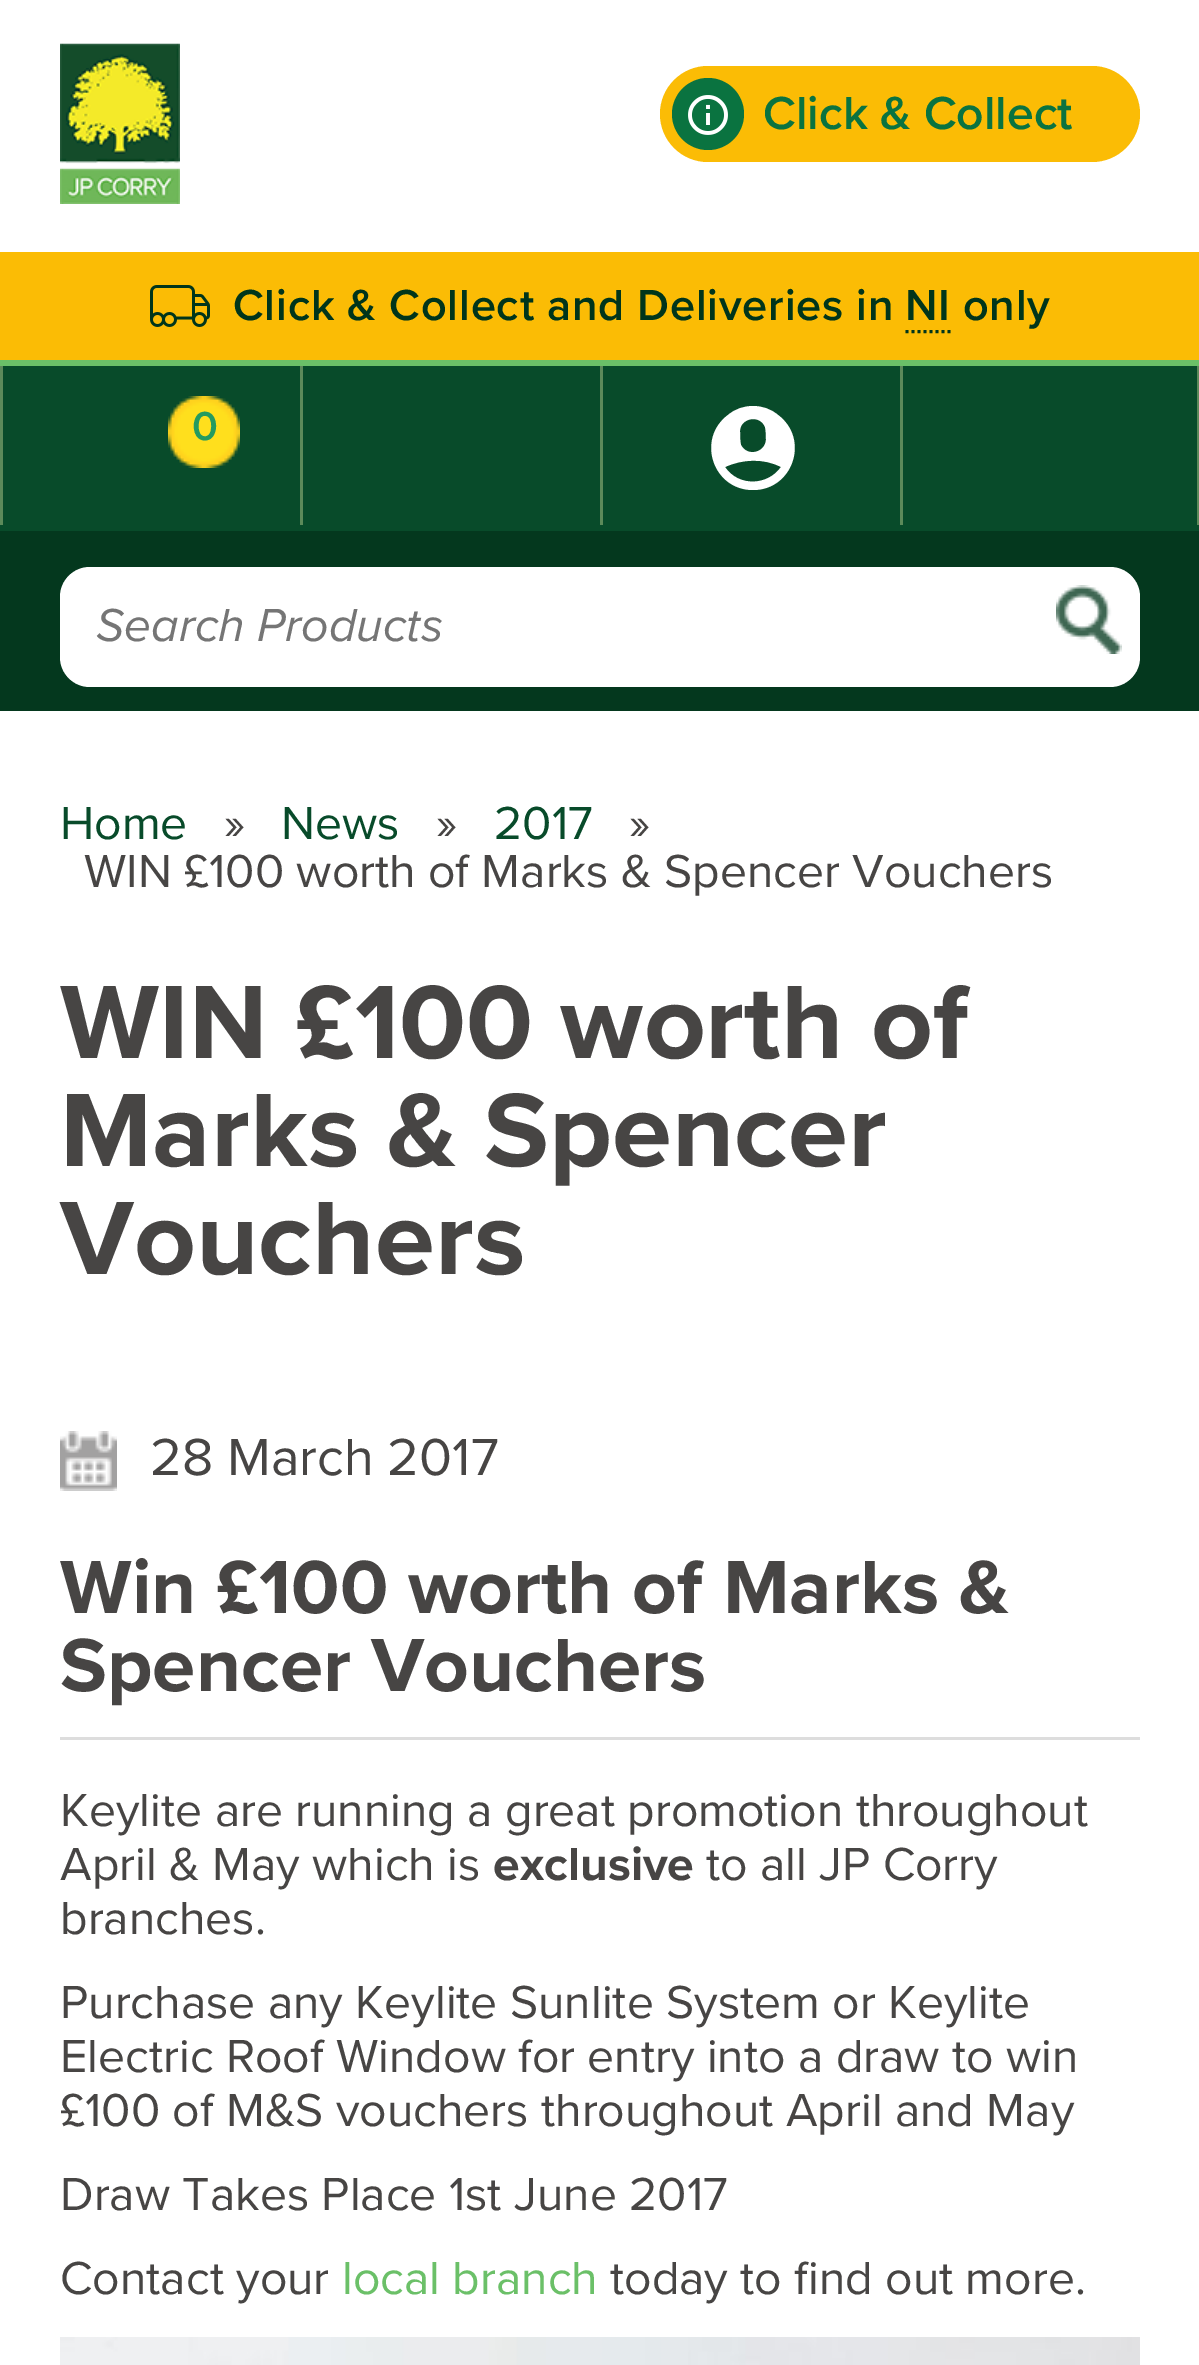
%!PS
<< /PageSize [1199 2365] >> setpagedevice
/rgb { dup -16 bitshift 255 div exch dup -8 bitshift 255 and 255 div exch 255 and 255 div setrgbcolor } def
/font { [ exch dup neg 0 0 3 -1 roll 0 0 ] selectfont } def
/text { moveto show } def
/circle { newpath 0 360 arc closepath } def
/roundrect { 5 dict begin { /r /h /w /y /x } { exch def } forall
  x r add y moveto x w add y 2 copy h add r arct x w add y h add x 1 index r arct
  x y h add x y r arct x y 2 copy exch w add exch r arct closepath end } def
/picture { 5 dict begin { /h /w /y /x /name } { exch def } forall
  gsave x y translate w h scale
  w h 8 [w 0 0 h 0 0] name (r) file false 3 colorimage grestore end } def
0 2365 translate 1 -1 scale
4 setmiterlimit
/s1 { /ProximaNova-SemiBold 48 font 16#0A7340 rgb } def
/s2 { /ProximaNova-SemiBold 42 font 16#249B60 rgb } def
/s3 { /ProximaNova-Italic 48 font 16#757575 rgb } def
/s4 { /ProximaNova-Regular 48 font 16#084B2A rgb } def
/s5 { /ProximaNova-Regular 48 font 16#474544 rgb } def
/s6 { /ProximaNova-Bold 108 font 16#474544 rgb } def
/s7 { /ProximaNova-Regular 54 font 16#474544 rgb } def
/s8 { /ProximaNova-Bold 78 font 16#474544 rgb } def
/s9 { /ProximaNova-Bold 48 font 16#474544 rgb } def
/s10 { /ProximaNova-Regular 48 font 16#6BC068 rgb } def
16#FFFFFF rgb
0 0 1199 2365 rectfill
(pic1.raw) 60 43 120 161 picture
16#FBBC05 rgb
660 66 480 96 48 roundrect fill
16#0A7340 rgb
708 114 36 circle fill
(pic2.raw) 688 95 40 40 picture
s1
(Click & Collect) 763 129 text
16#FBBC05 rgb
0 252 1199 108 rectfill
(pic3.raw) 150 285 60 42 picture
/ProximaNova-SemiBold 45 font
16#00351B rgb
233 320 moveto 0.75 0 (Click & Collect and Deliveries in) ashow
905 320 moveto 0.75 0 (NI only) ashow
3 setlinewidth
[3 3] 0 setdash
905.5 331.5 moveto 951 331.5 lineto stroke
16#084B2A rgb
0 366 1199 165 rectfill
16#6BC068 rgb
0 360 1199 6 rectfill
16#5C8A5A rgb
0 366 3 159 rectfill
(pic4.raw) 168 396 72 72 picture
s2
(0) 192 440 text
16#5C8A5A rgb
300 366 3 159 rectfill
600 366 3 159 rectfill
16#FFFFFF rgb
753 490 moveto 713 490 696 439 728 415 curveto 735 409 744 406 753 406 curveto 762 406 771 409 778 415 curveto 810 439 793 490 753 490 curveto closepath 740 431 moveto 740 436 740 441 741 445 curveto 747 457 765 453 766 440 curveto 766 436 766 431 765 427 curveto 760 414 740 418 740 431 curveto closepath 725 467 moveto 738 487 768 486 781 467 curveto 764 458 742 459 725 467 curveto closepath fill
16#5C8A5A rgb
1197 366 2 159 rectfill
900 366 3 159 rectfill
16#04381E rgb
0 531 1199 180 rectfill
16#FFFFFF rgb
60 567 1080 120 30 roundrect fill
s3
(Search Products) 96 641 text
(pic5.raw) 1056 585 66 69 picture
s4
(Home) 60 839 text
s5
(») 224 839 text
s4
(News) 281 839 text
s5
(») 436 839 text
s4
(2017) 494 839 text
s5
(») 629 839 text
(WIN £100 worth of Marks & Spencer Vouchers) 84 887 text
s6
(WIN £100 worth of) 60 1058 text
(Marks & Spencer) 60 1166 text
(Vouchers) 60 1274 text
(pic6.raw) 60 1431 57 60 picture
s7
(28 March 2017) 150 1475 text
16#DDDDDD rgb
60 1737 1080 3 rectfill
s8
(Win £100 worth of Marks &) 60 1613 text
(Spencer Vouchers) 60 1691 text
s5
(Keylite are running a great promotion throughout) 60 1826 text
(April & May which is) 60 1880 text
s9
(exclusive) 493 1880 text
s5
(to all JP Corry) 706 1880 text
(branches.) 60 1934 text
(Purchase any Keylite Sunlite System or Keylite) 60 2018 text
(Electric Roof Window for entry into a draw to win) 60 2072 text
(£100 of M&S vouchers throughout April and May) 60 2126 text
(Draw Takes Place 1st June 2017) 60 2210 text
(Contact your) 60 2294 text
s10
(local branch) 342 2294 text
s5
(today to find out more.) 610 2294 text
(pic7.raw) 60 2337 1080 28 picture
showpage
